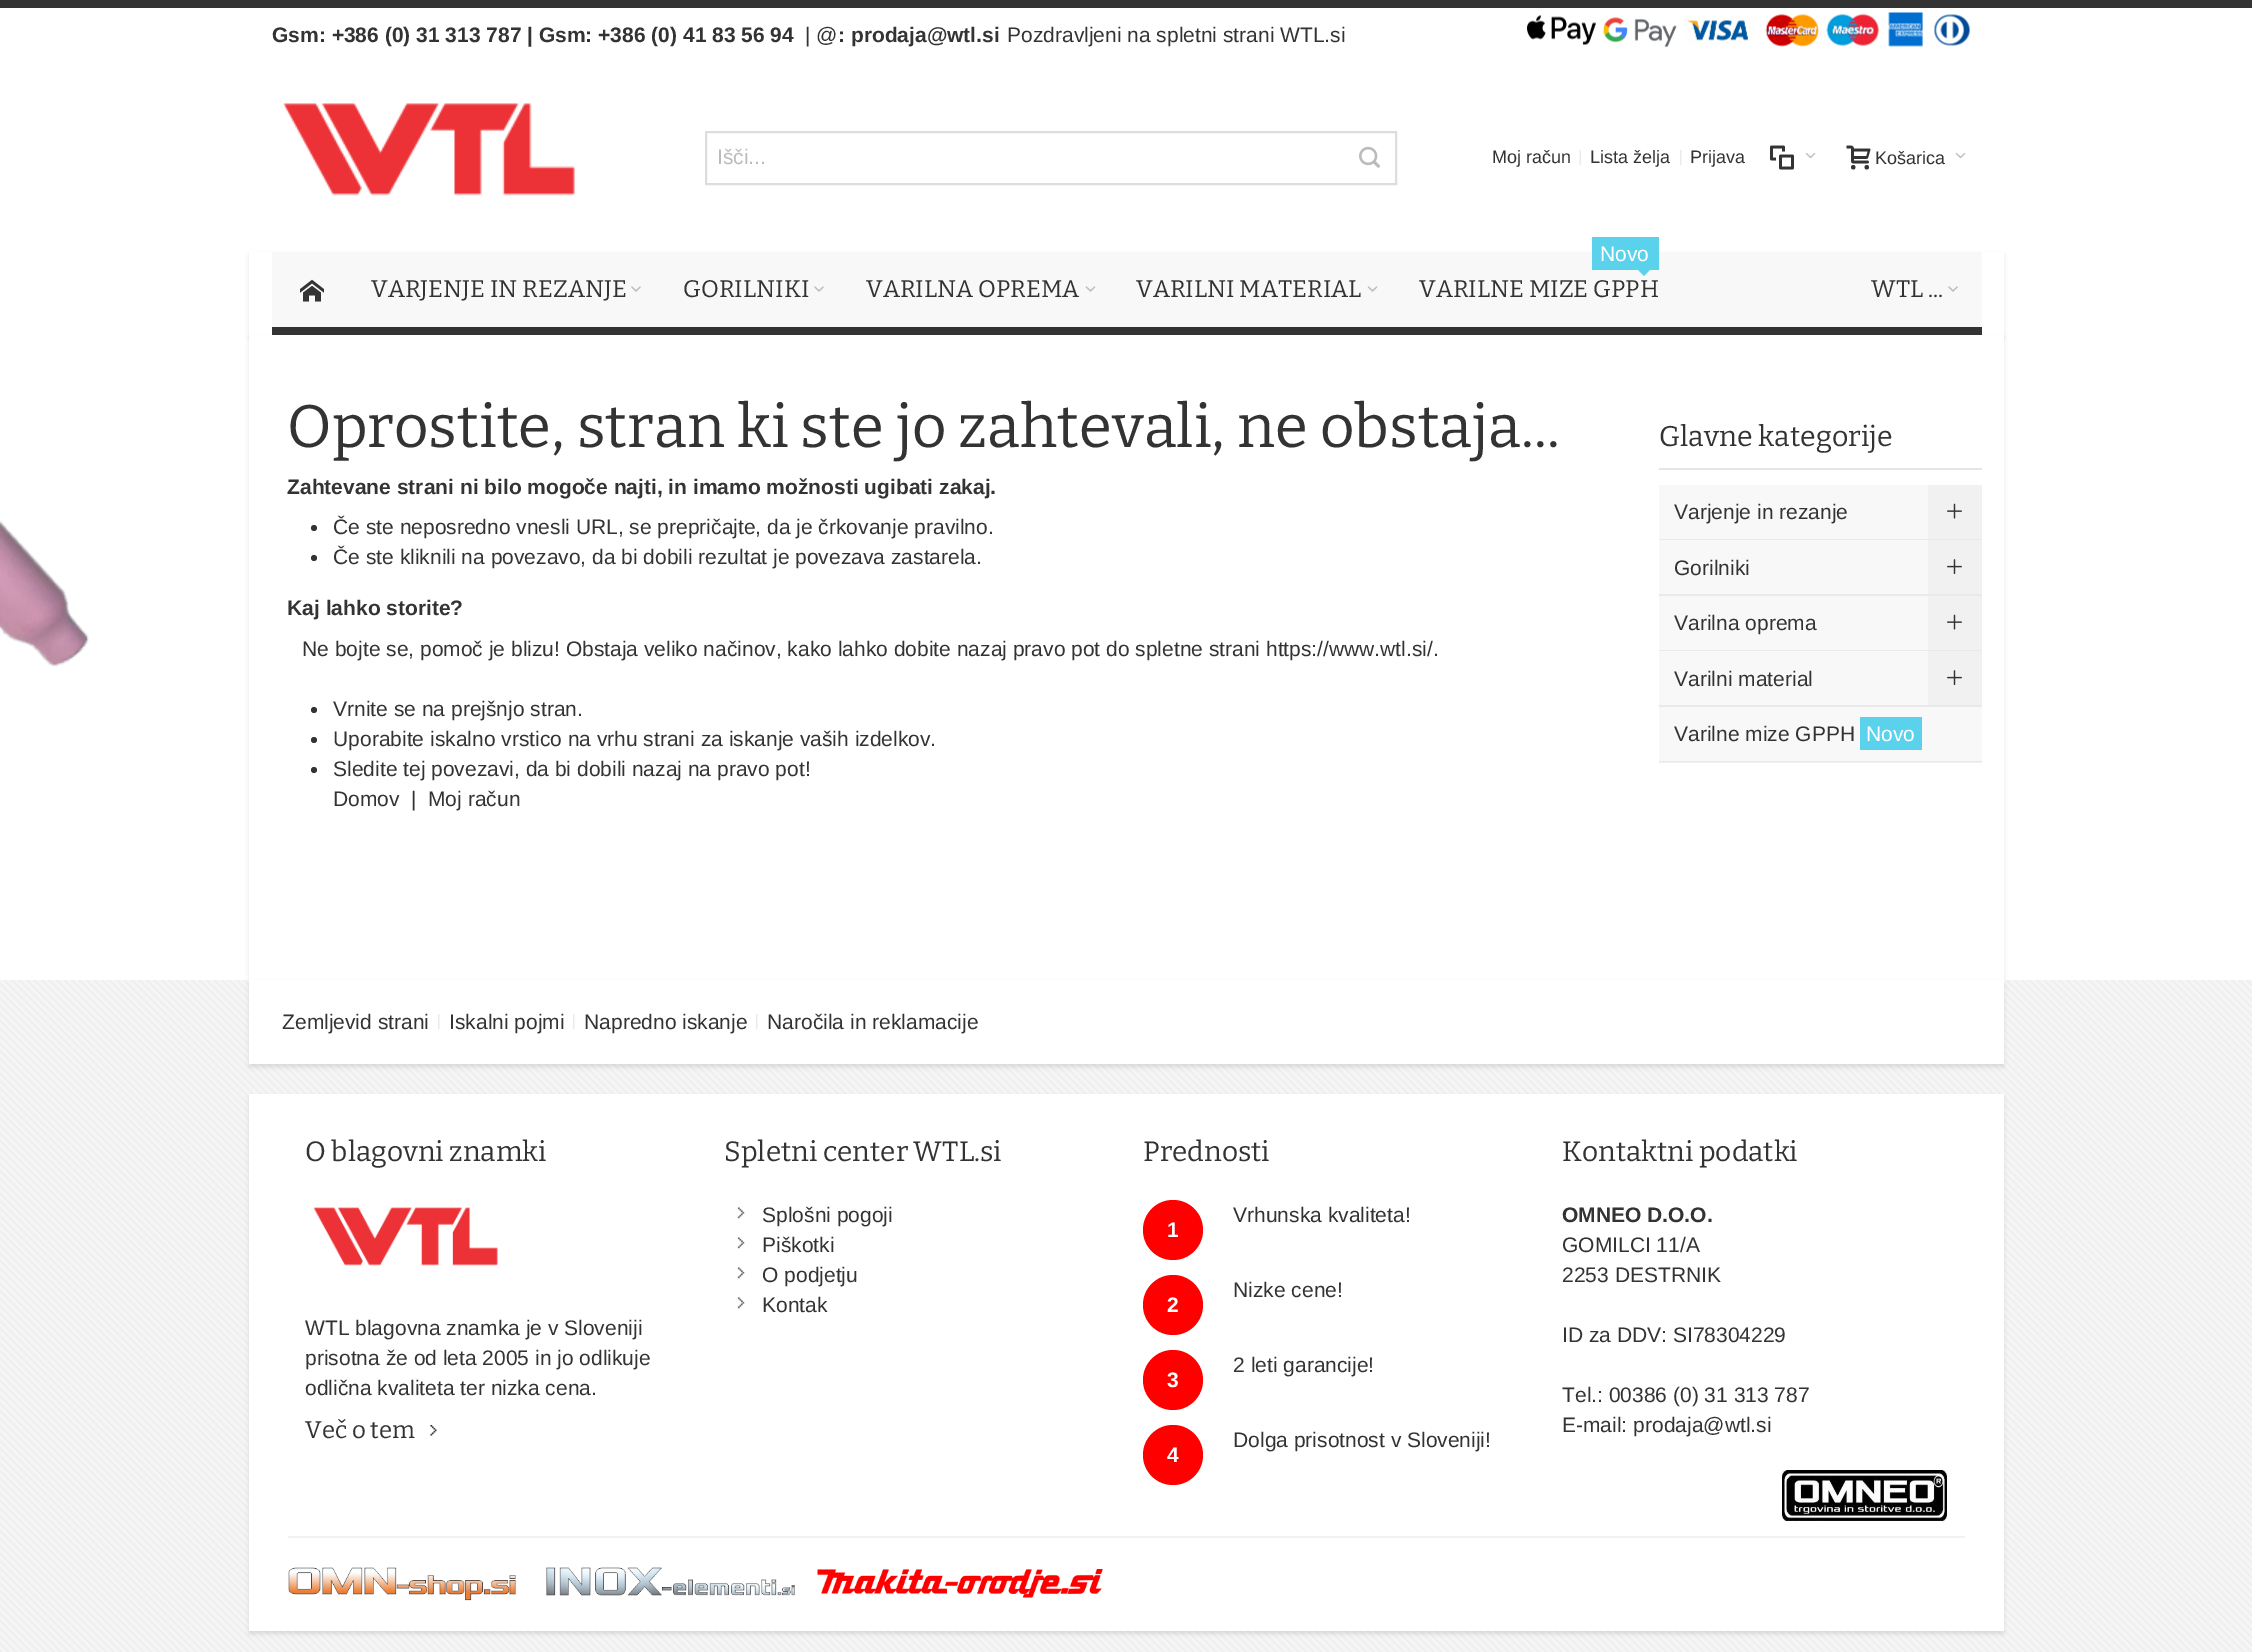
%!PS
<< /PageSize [2252 1652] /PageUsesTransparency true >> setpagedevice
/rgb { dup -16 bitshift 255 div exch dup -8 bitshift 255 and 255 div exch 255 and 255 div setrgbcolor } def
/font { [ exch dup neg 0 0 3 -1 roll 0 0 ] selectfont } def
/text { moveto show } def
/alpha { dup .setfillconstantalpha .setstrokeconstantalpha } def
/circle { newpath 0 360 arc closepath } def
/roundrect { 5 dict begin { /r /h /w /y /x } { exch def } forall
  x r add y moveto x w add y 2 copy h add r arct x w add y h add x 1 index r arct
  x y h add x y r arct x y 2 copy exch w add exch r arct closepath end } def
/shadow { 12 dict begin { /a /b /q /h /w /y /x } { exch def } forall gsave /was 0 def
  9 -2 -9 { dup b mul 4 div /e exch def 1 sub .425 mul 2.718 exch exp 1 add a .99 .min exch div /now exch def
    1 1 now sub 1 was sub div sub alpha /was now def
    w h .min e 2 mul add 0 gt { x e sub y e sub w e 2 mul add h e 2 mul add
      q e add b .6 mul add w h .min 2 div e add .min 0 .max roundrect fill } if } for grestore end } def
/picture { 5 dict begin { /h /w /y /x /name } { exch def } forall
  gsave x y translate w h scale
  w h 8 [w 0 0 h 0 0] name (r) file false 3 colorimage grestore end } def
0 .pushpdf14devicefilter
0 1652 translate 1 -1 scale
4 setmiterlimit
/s1 { /LiberationSans-Bold 21 font 16#333333 rgb } def
/s2 { /LiberationSans-Regular 21 font 16#333333 rgb } def
/s3 { /LiberationSans-Regular 21 font 16#BBBBBB rgb } def
/s4 { /LiberationSans-Regular 18 font 16#333333 rgb } def
/s5 { /Bitter-Thin 24 font 16#333333 rgb } def
/s6 { /LiberationSans-Regular 21 font 16#FFFFFF rgb } def
/s7 { /Bitter-Thin 60 font 16#333333 rgb } def
/s8 { /Bitter-Thin 28.5 font 16#333333 rgb } def
/s9 { /Bitter-Thin 28 font 16#333333 rgb } def
/s10 { /LiberationSans-Bold 21 font 16#FFFFFF rgb } def
16#FFFFFF rgb
0 0 2252 1652 rectfill
(pic1.raw) 0 520 89 147 picture
16#333333 rgb
0 0 2252 8 rectfill
s1
(Gsm: +386 \(0\) 31 313 787 | Gsm: +386 \(0\) 41 83 56 94) 272 42 text
s2
(| @) 805 42 text
s1
(: prodaja@wtl.si) 838 42 text
s2
(Pozdravljeni na spletni strani WTL.si) 1007 42 text
(pic2.raw) 1527 12 443 36 picture
(pic3.raw) 283 103 292 93 picture
16#DDDDDD rgb
2 setlinewidth
706 132 690 52 rectstroke
s3
(Išči...) 717 164 text
(pic4.raw) 1359 146 21 22 picture
s4
(Moj račun) 1492 163 text
(pic5.raw) 1579 150 2 15 picture
(Lista želja) 1590 163 text
(pic6.raw) 1680 150 2 15 picture
(Prijava) 1690 163 text
(pic7.raw) 1770 145 24 25 picture
(pic8.raw) 1805 152 11 7 picture
(pic9.raw) 1846 145 25 25 picture
(Košarica) 1875 164 text
(pic8.raw) 1955 152 11 7 picture
gsave
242 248 moveto 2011 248 lineto 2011 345 lineto 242 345 lineto closepath 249 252 moveto 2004 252 lineto 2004 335 lineto 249 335 lineto closepath eoclip newpath
16#000000 rgb
249 255 1755 83 0 2 0.1 shadow
grestore
16#F8F8F8 rgb
272 252 1710 75 rectfill
(pic10.raw) 300 279 24 23 picture
s5
(VARJENJE IN REZANJE) 371 297 text
(pic11.raw) 631 286 10 6 picture
(GORILNIKI) 683 297 text
(pic11.raw) 814 286 10 6 picture
(VARILNA OPREMA) 866 297 text
(pic12.raw) 1085 286 11 6 picture
(VARILNI MATERIAL) 1136 297 text
(pic12.raw) 1367 286 11 6 picture
16#5BD2EC rgb
1592 237 67 33 rectfill
s6
(Novo) 1600 261 text
16#5BD2EC rgb
1638 270 moveto 1650 270 lineto 1644 276 lineto closepath fill
s5
(VARILNE MIZE GPPH) 1419 297 text
(WTL ...) 1871 297 text
(pic11.raw) 1948 286 10 6 picture
16#000000 rgb
249 338 1755 645 0 2 0.1 shadow
16#333333 rgb
272 327 1710 8 rectfill
16#FFFFFF rgb
249 335 1755 645 rectfill
16#F0F0F0 rgb
1659 762 323 1 rectfill
s7
(Oprostite, stran ki ste jo zahtevali, ne obstaja...) 287 447 text
s1
(Zahtevane strani ni bilo mogoče najti, in imamo možnosti ugibati zakaj.) 287 494 text
314 528 3 circle fill
s2
(Če ste neposredno vnesli URL, se prepričajte, da je črkovanje pravilno.) 333 534 text
314 558 3 circle fill
(Če ste kliknili na povezavo, da bi dobili rezultat je povezava zastarela.) 333 564 text
s1
(Kaj lahko storite?) 287 615 text
s2
(Ne bojte se, pomoč je blizu! Obstaja veliko načinov, kako lahko dobite nazaj pravo pot do spletne strani https://www.wtl.si/.) 302 656 text
314 710 3 circle fill
(Vrnite se na prejšnjo stran.) 333 716 text
314 740 3 circle fill
(Uporabite iskalno vrstico na vrhu strani za iskanje vaših izdelkov.) 333 746 text
314 770 3 circle fill
(Sledite tej povezavi, da bi dobili nazaj na pravo pot!) 333 776 text
(Domov) 333 806 text
(|) 411 806 text
(Moj račun) 428 806 text
16#E5E5E5 rgb
1659 468 323 2 rectfill
s8
(Glavne kategorije) 1659 446 text
16#F8F8F8 rgb
1659 485 269 54 rectfill
16#E9E9E9 rgb
1659 539 323 1 rectfill
s2
(Varjenje in rezanje) 1674 519 text
16#F1F1F1 rgb
1928 485 54 54 rectfill
(pic13.raw) 1947 503 15 16 picture
16#F8F8F8 rgb
1659 540 269 54 rectfill
16#E9E9E9 rgb
1659 594 323 2 rectfill
s2
(Gorilniki) 1674 575 text
16#F1F1F1 rgb
1928 540 54 54 rectfill
(pic14.raw) 1947 559 15 16 picture
16#F8F8F8 rgb
1659 596 269 54 rectfill
16#E9E9E9 rgb
1659 650 323 1 rectfill
s2
(Varilna oprema) 1674 630 text
16#F1F1F1 rgb
1928 596 54 54 rectfill
(pic13.raw) 1947 614 15 16 picture
16#F8F8F8 rgb
1659 651 269 54 rectfill
16#E9E9E9 rgb
1659 705 323 2 rectfill
s2
(Varilni material) 1674 686 text
16#F1F1F1 rgb
1928 651 54 54 rectfill
(pic14.raw) 1947 670 15 16 picture
16#F8F8F8 rgb
1659 707 323 54 rectfill
16#E9E9E9 rgb
1659 761 323 1 rectfill
s2
(Varilne mize GPPH) 1674 741 text
16#5BD2EC rgb
1860 717 62 33 rectfill
s6
(Novo) 1866 741 text
16#F5F5F5 rgb
0 980 2252 672 rectfill
(pic15.raw) 0 980 2252 672 picture
16#000000 rgb
249 983 1755 84 0 2 0.1 shadow
16#FFFFFF rgb
249 980 1755 84 rectfill
(pic6.raw) 438 1014 2 15 picture
s2
(Zemljevid strani) 282 1029 text
(pic6.raw) 573 1014 2 15 picture
(Iskalni pojmi) 449 1029 text
(pic6.raw) 756 1014 2 15 picture
(Napredno iskanje) 584 1029 text
(Naročila in reklamacije) 767 1029 text
16#000000 rgb
249 1097 1755 537 0 2 0.1 shadow
16#FFFFFF rgb
249 1094 1755 537 rectfill
s9
(O blagovni znamki) 305 1161 text
(pic16.raw) 313 1207 185 59 picture
s2
(WTL blagovna znamka je v Sloveniji) 305 1335 text
(prisotna že od leta 2005 in jo odlikuje) 305 1365 text
(odlična kvaliteta ter nizka cena.) 305 1395 text
s5
(Več o tem) 305 1438 text
(pic17.raw) 430 1425 7 11 picture
s9
(Spletni center WTL.si) 724 1161 text
(pic18.raw) 737 1207 8 12 picture
s2
(Splošni pogoji) 762 1222 text
(pic18.raw) 737 1237 8 12 picture
(Piškotki) 762 1252 text
(pic18.raw) 737 1267 8 12 picture
(O podjetju) 762 1282 text
(pic18.raw) 737 1297 8 12 picture
(Kontak) 762 1312 text
s9
(Prednosti) 1143 1161 text
s2
(Vrhunska kvaliteta!) 1233 1222 text
16#FF0000 rgb
1173 1230 30 circle fill
s10
(1) 1167 1237 text
s2
(Nizke cene!) 1233 1297 text
16#FF0000 rgb
1173 1305 30 circle fill
s10
(2) 1167 1312 text
s2
(2 leti garancije!) 1233 1372 text
16#FF0000 rgb
1173 1380 30 circle fill
s10
(3) 1167 1387 text
s2
(Dolga prisotnost v Sloveniji!) 1233 1447 text
16#FF0000 rgb
1173 1455 30 circle fill
s10
(4) 1167 1462 text
s9
(Kontaktni podatki) 1562 1161 text
s1
(OMNEO D.O.O.) 1562 1222 text
s2
(GOMILCI 11/A) 1562 1252 text
(2253 DESTRNIK) 1562 1282 text
(ID za DDV: SI78304229) 1562 1342 text
(Tel.: 00386 \(0\) 31 313 787) 1562 1402 text
(E-mail: prodaja@wtl.si) 1562 1432 text
(pic19.raw) 1782 1470 165 51 picture
16#F2F2F2 rgb
288 1536 1677 2 rectfill
(pic20.raw) 288 1567 228 34 picture
(pic21.raw) 546 1567 249 29 picture
(pic22.raw) 817 1569 286 29 picture
.poppdf14devicefilter showpage
